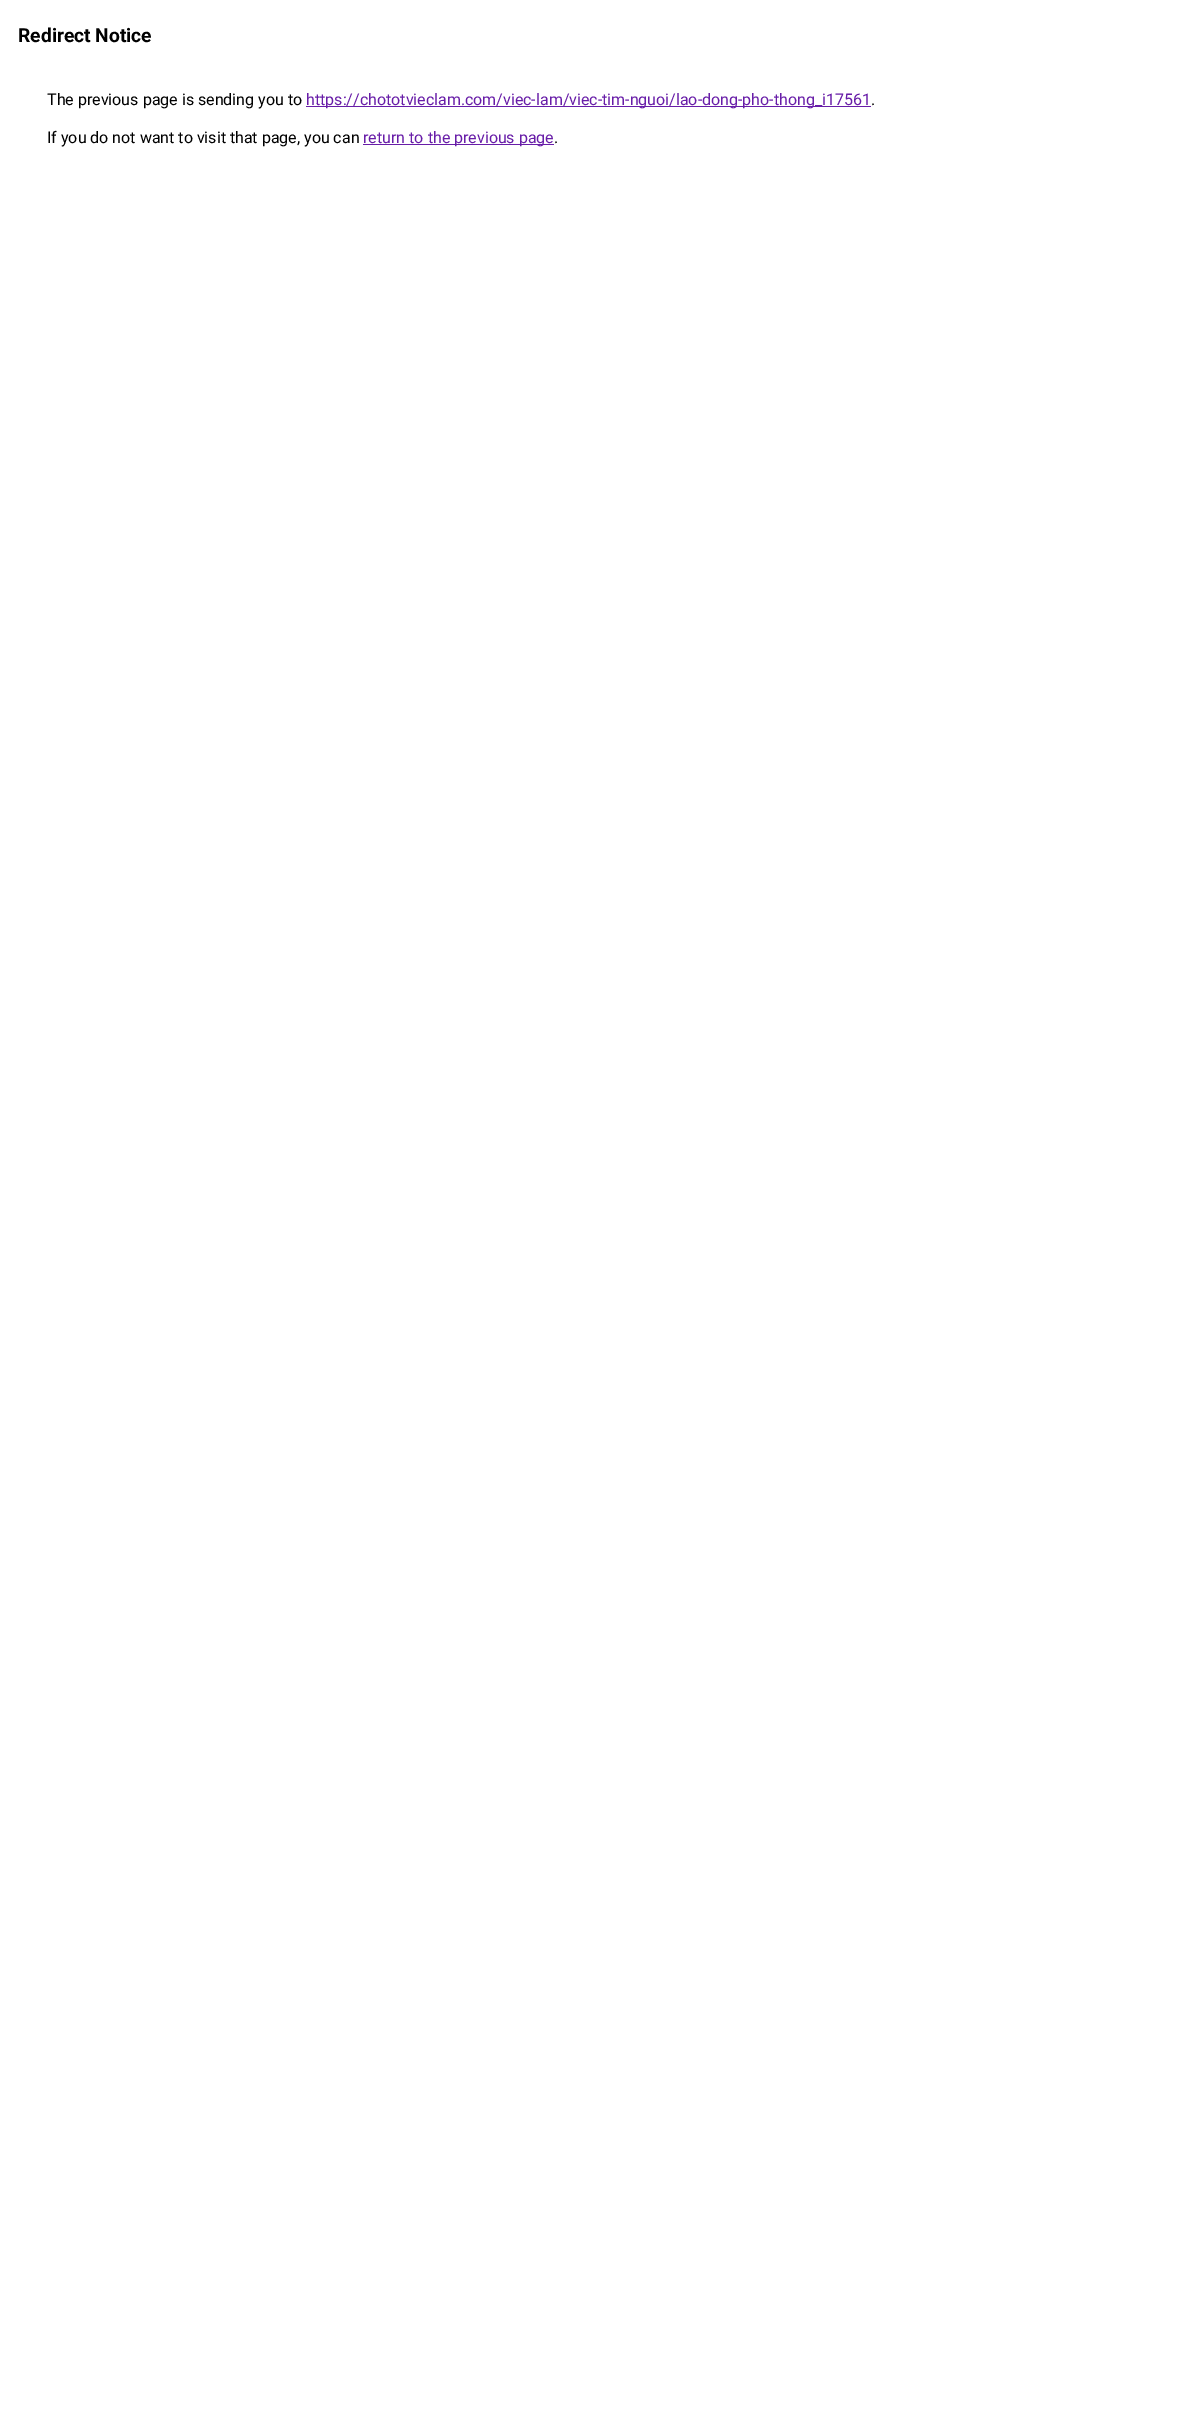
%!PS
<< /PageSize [1188 2430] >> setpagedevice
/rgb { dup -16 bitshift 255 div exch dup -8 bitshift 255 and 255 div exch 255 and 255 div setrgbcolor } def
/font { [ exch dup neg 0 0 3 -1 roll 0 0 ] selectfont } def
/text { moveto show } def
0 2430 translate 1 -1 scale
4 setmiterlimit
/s1 { /Roboto-Bold 19.25 font 16#000000 rgb } def
/s2 { /Roboto-Regular 16 font 16#000000 rgb } def
/s3 { /Roboto-Regular 16 font 16#681DA8 rgb } def
16#FFFFFF rgb
0 0 1188 2430 rectfill
s1
(Redirect Notice) 18 42 text
s2
(The previous page is sending you to) 47 105 text
16#681DA8 rgb
306 106 565 1 rectfill
(https://chototvieclam.com/viec-lam/viec-tim-nguoi/lao-dong-pho-thong_i17561) 306 105 text
s2
(.) 871 105 text
(If you do not want to visit that page, you can) 47 143 text
16#681DA8 rgb
363 144 191 1 rectfill
(return to the previous page) 363 143 text
s2
(.) 554 143 text
showpage
